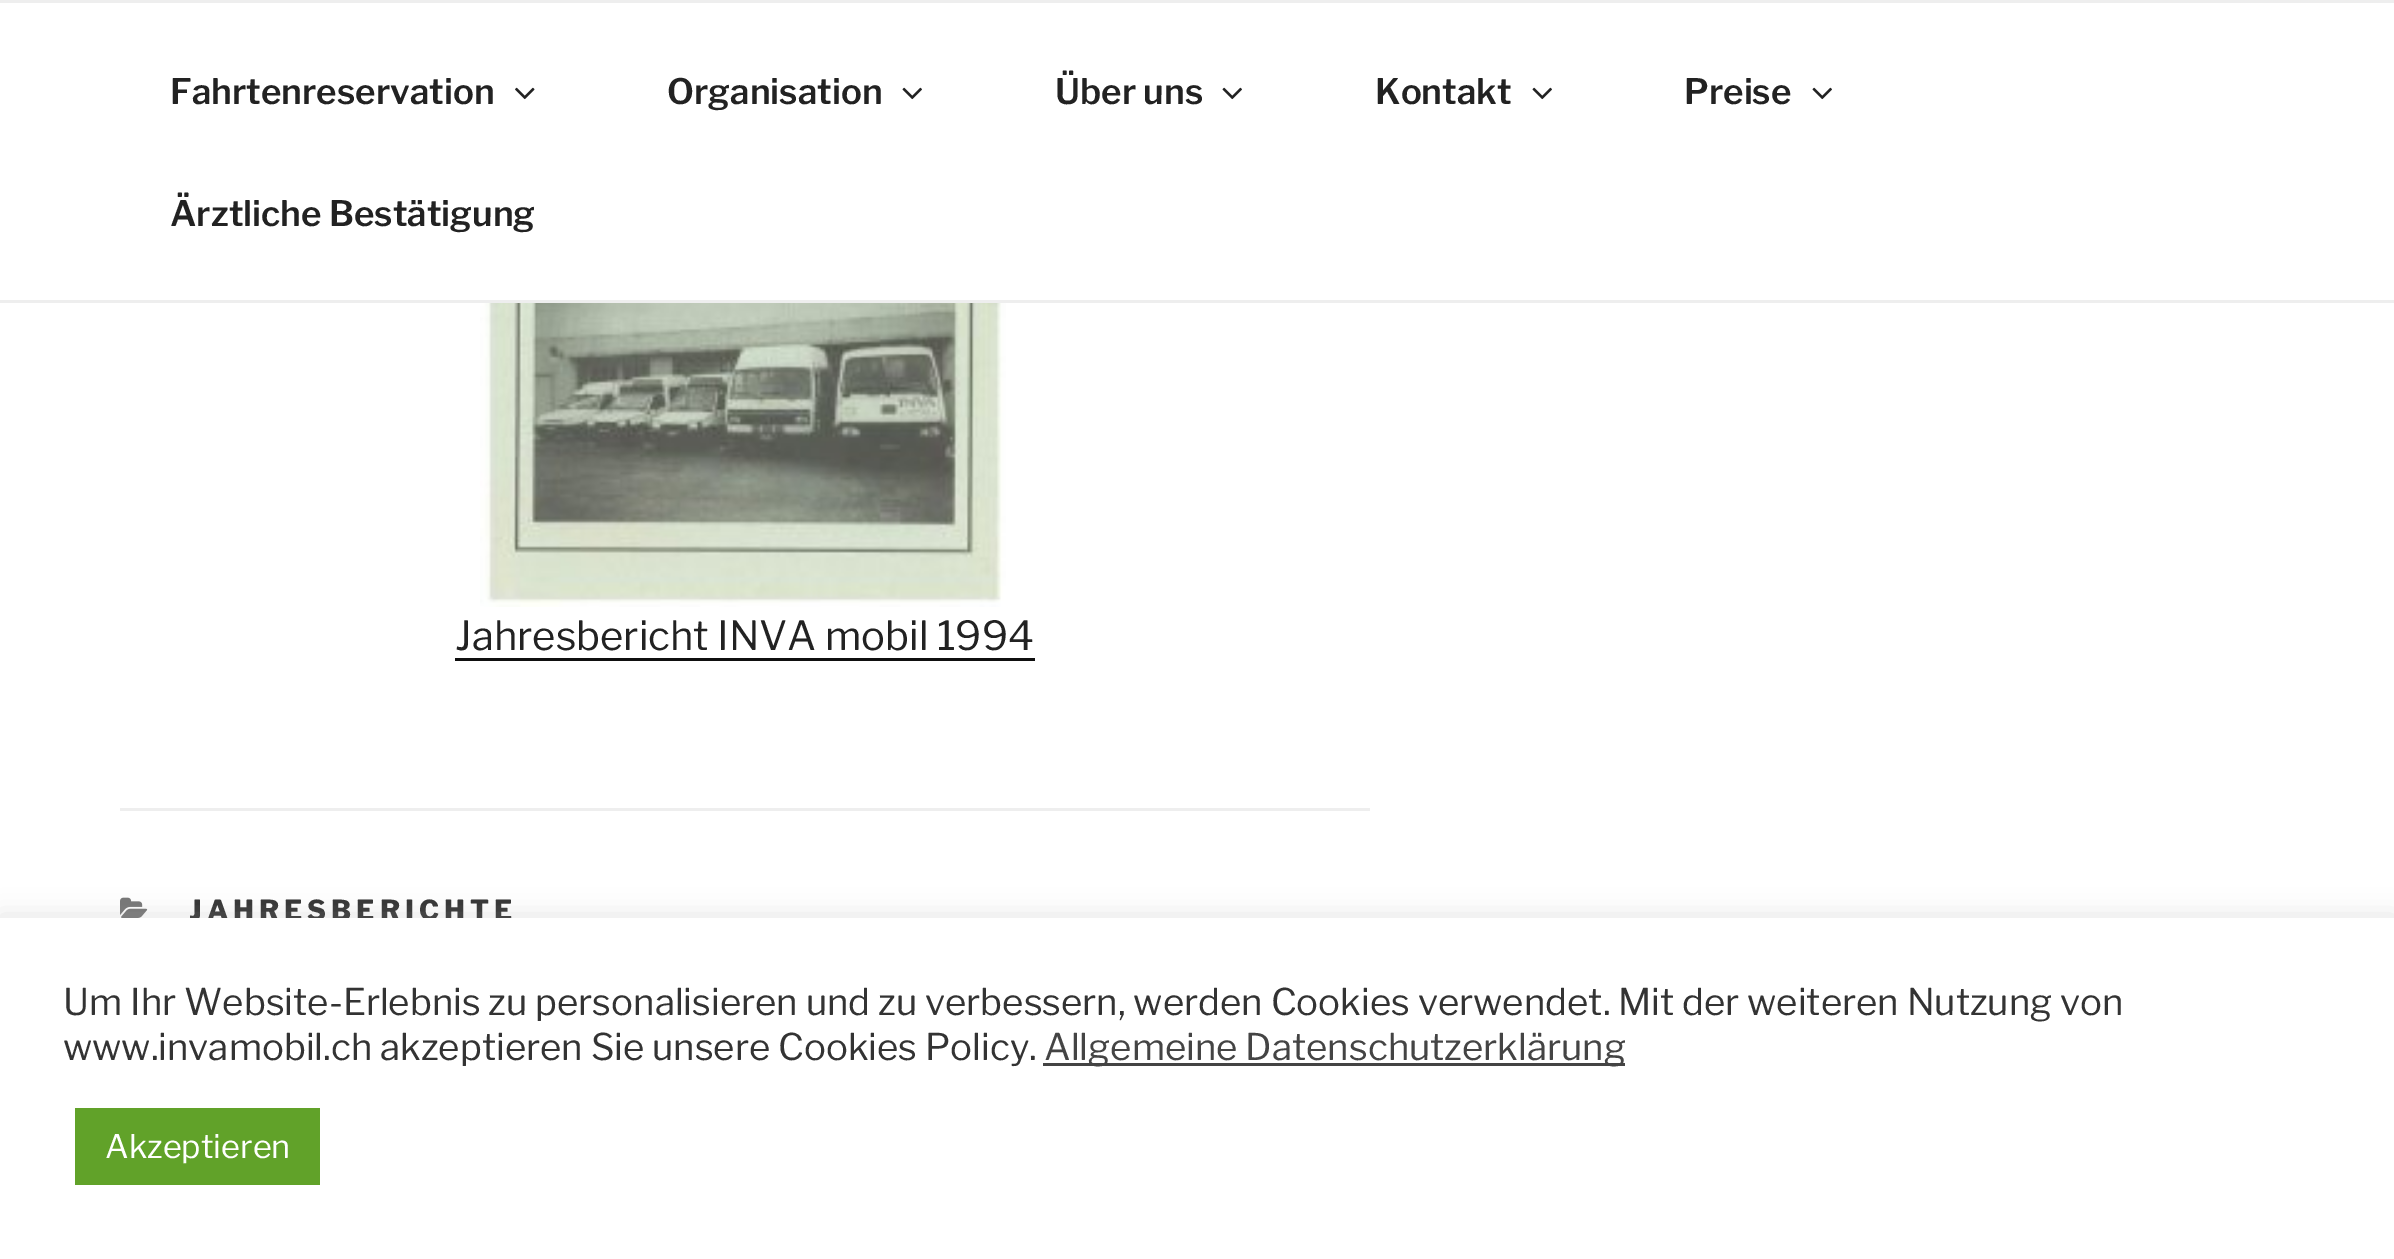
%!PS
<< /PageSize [2394 1259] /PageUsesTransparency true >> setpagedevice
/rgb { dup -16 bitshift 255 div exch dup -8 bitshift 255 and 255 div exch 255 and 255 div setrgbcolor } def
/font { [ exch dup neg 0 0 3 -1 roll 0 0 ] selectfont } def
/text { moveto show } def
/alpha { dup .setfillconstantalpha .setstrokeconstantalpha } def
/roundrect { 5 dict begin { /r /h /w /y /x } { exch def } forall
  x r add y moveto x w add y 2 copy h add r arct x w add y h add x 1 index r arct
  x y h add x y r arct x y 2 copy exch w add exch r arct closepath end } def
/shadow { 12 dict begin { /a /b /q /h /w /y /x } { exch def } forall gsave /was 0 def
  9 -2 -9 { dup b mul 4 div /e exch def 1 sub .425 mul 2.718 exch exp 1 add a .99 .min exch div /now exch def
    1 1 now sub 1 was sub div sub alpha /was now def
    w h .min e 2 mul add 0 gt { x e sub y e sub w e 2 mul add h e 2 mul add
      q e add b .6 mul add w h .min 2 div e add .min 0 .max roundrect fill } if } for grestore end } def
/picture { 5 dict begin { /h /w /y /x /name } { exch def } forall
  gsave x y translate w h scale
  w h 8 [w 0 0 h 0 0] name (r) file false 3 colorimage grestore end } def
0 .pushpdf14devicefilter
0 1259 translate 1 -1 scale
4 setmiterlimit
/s1 { /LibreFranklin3-Thin 35 font 16#222222 rgb } def
/s2 { /LibreFranklin-Thin 40 font 16#222222 rgb } def
/s3 { /LibreFranklin-Thin 36.67 font 16#333333 rgb } def
/s4 { /LibreFranklin-Thin 36.67 font 16#444444 rgb } def
/s5 { /LibreFranklin-Thin 32.5 font 16#FFFFFF rgb } def
16#FFFFFF rgb
0 0 2394 1259 rectfill
16#EEEEEE rgb
0 0 2394 3 rectfill
0 300 2394 3 rectfill
s1
(Fahrtenreservation) 170 104 text
(pic1.raw) 515 87 20 13 picture
(Organisation) 667 104 text
(pic2.raw) 902 87 20 13 picture
(Über uns) 1055 104 text
(pic2.raw) 1222 87 20 13 picture
(Kontakt) 1375 104 text
(pic2.raw) 1532 87 20 13 picture
(Preise) 1684 104 text
(pic2.raw) 1812 87 20 13 picture
(Ärztliche Bestätigung) 170 226 text
(pic3.raw) 480 303 526 304 picture
s2
(Jahresbericht INVA mobil 1994) 455 650 text
16#0F0F0F rgb
455 658 580 3 rectfill
16#EEEEEE rgb
120 808 1250 3 rectfill
(pic4.raw) 120 897 28 21 picture
/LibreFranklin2-Thin 27.5 font
16#333333 rgb
189 920 moveto 5 0 (JAHRESBERICHTE) ashow
16#ACABAB rgb
0 915 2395 343 0 12.5 0.3 shadow
16#FFFFFF rgb
0 918 2394 341 rectfill
s3
(Um Ihr Website-Erlebnis zu personalisieren und zu verbessern, werden Cookies verwendet. Mit der weiteren Nutzung von) 63 1015 text
(www.invamobil.ch akzeptieren Sie unsere Cookies Policy.) 63 1060 text
16#444444 rgb
1043 1063 582 3 rectfill
(Allgemeine Datenschutzerklärung) 1044 1060 text
16#61A229 rgb
75 1108 245 77 rectfill
s5
(Akzeptieren) 105 1158 text
.poppdf14devicefilter showpage
